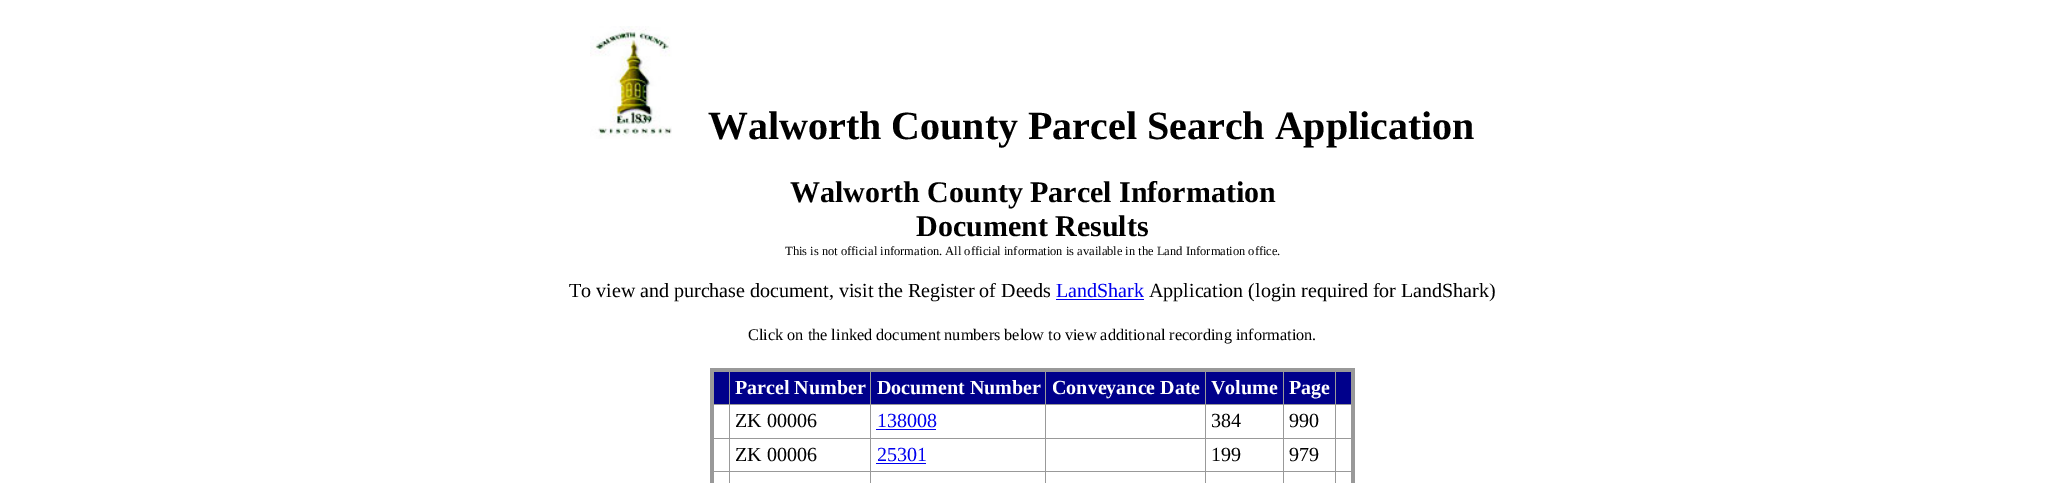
%!PS
<< /PageSize [2065 483] >> setpagedevice
/rgb { dup -16 bitshift 255 div exch dup -8 bitshift 255 and 255 div exch 255 and 255 div setrgbcolor } def
/font { [ exch dup neg 0 0 3 -1 roll 0 0 ] selectfont } def
/text { moveto show } def
/picture { 5 dict begin { /h /w /y /x /name } { exch def } forall
  gsave x y translate w h scale
  w h 8 [w 0 0 h 0 0] name (r) file false 3 colorimage grestore end } def
0 483 translate 1 -1 scale
4 setmiterlimit
/s1 { /LiberationSerif-Bold 40 font 16#000000 rgb } def
/s2 { /LiberationSerif-Bold 30 font 16#000000 rgb } def
/s3 { /LiberationSerif-Regular 12.5 font 16#000000 rgb } def
/s4 { /LiberationSerif-Regular 20 font 16#000000 rgb } def
/s5 { /LiberationSerif-Regular 20 font 16#0000EE rgb } def
/s6 { /LiberationSerif-Regular 16.25 font 16#000000 rgb } def
/s7 { /LiberationSerif-Bold 20 font 16#FFFFFF rgb } def
16#FFFFFF rgb
0 0 2065 483 rectfill
(pic1.raw) 590 26 82 113 picture
s1
(Walworth County Parcel Search Application) 708 139 text
s2
(Walworth County Parcel Information) 790 202 text
(Document Results) 916 236 text
s3
(This is not official information. All official information is available in the Land Information office.) 785 255 text
s4
(To view and purchase document, visit the Register of Deeds) 569 297 text
s5
(LandShark) 1056 297 text
1056 299 88 1 rectfill
s4
(Application \(login required for LandShark\)) 1149 297 text
s6
(Click on the linked document numbers below to view additional recording information.) 748 340 text
16#999999 rgb
1335 404 19 1 rectfill
1335 438 19 1 rectfill
1335 471 19 1 rectfill
1335 471 1 12 rectfill
1283 471 53 1 rectfill
1335 438 1 35 rectfill
1283 438 53 1 rectfill
1335 404 1 35 rectfill
1283 404 53 1 rectfill
1283 471 1 12 rectfill
1205 471 79 1 rectfill
1283 438 1 35 rectfill
1205 438 79 1 rectfill
1283 404 1 35 rectfill
1205 404 79 1 rectfill
1205 471 1 12 rectfill
1045 471 161 1 rectfill
1205 438 1 35 rectfill
1045 438 161 1 rectfill
1205 404 1 35 rectfill
1045 404 161 1 rectfill
1045 471 1 12 rectfill
870 471 176 1 rectfill
1045 438 1 35 rectfill
870 438 176 1 rectfill
1045 404 1 35 rectfill
870 404 176 1 rectfill
870 471 1 12 rectfill
729 471 142 1 rectfill
870 438 1 35 rectfill
729 438 142 1 rectfill
870 404 1 35 rectfill
729 404 142 1 rectfill
729 471 1 12 rectfill
711 471 19 1 rectfill
729 438 1 35 rectfill
711 438 19 1 rectfill
729 404 1 35 rectfill
711 404 19 1 rectfill
729 369 1 36 rectfill
870 369 1 36 rectfill
1045 369 1 36 rectfill
1205 369 1 36 rectfill
1283 369 1 36 rectfill
1335 369 1 36 rectfill
710 368 645 4 rectfill
1351 368 4 115 rectfill
710 368 4 115 rectfill
16#00008B rgb
714 372 15 32 rectfill
730 372 140 32 rectfill
s7
(Parcel Number) 735 394 text
16#00008B rgb
871 372 174 32 rectfill
s7
(Document Number) 877 394 text
16#00008B rgb
1046 372 159 32 rectfill
s7
(Conveyance Date) 1052 394 text
16#00008B rgb
1206 372 77 32 rectfill
s7
(Volume) 1211 394 text
16#00008B rgb
1284 372 51 32 rectfill
s7
(Page) 1289 394 text
16#00008B rgb
1336 372 15 32 rectfill
s4
(ZK 00006) 735 427 text
s5
(138008) 877 427 text
876 429 60 1 rectfill
s4
(384) 1211 427 text
(990) 1289 427 text
(ZK 00006) 735 461 text
s5
(25301) 877 461 text
876 463 50 1 rectfill
s4
(199) 1211 461 text
(979) 1289 461 text
showpage
